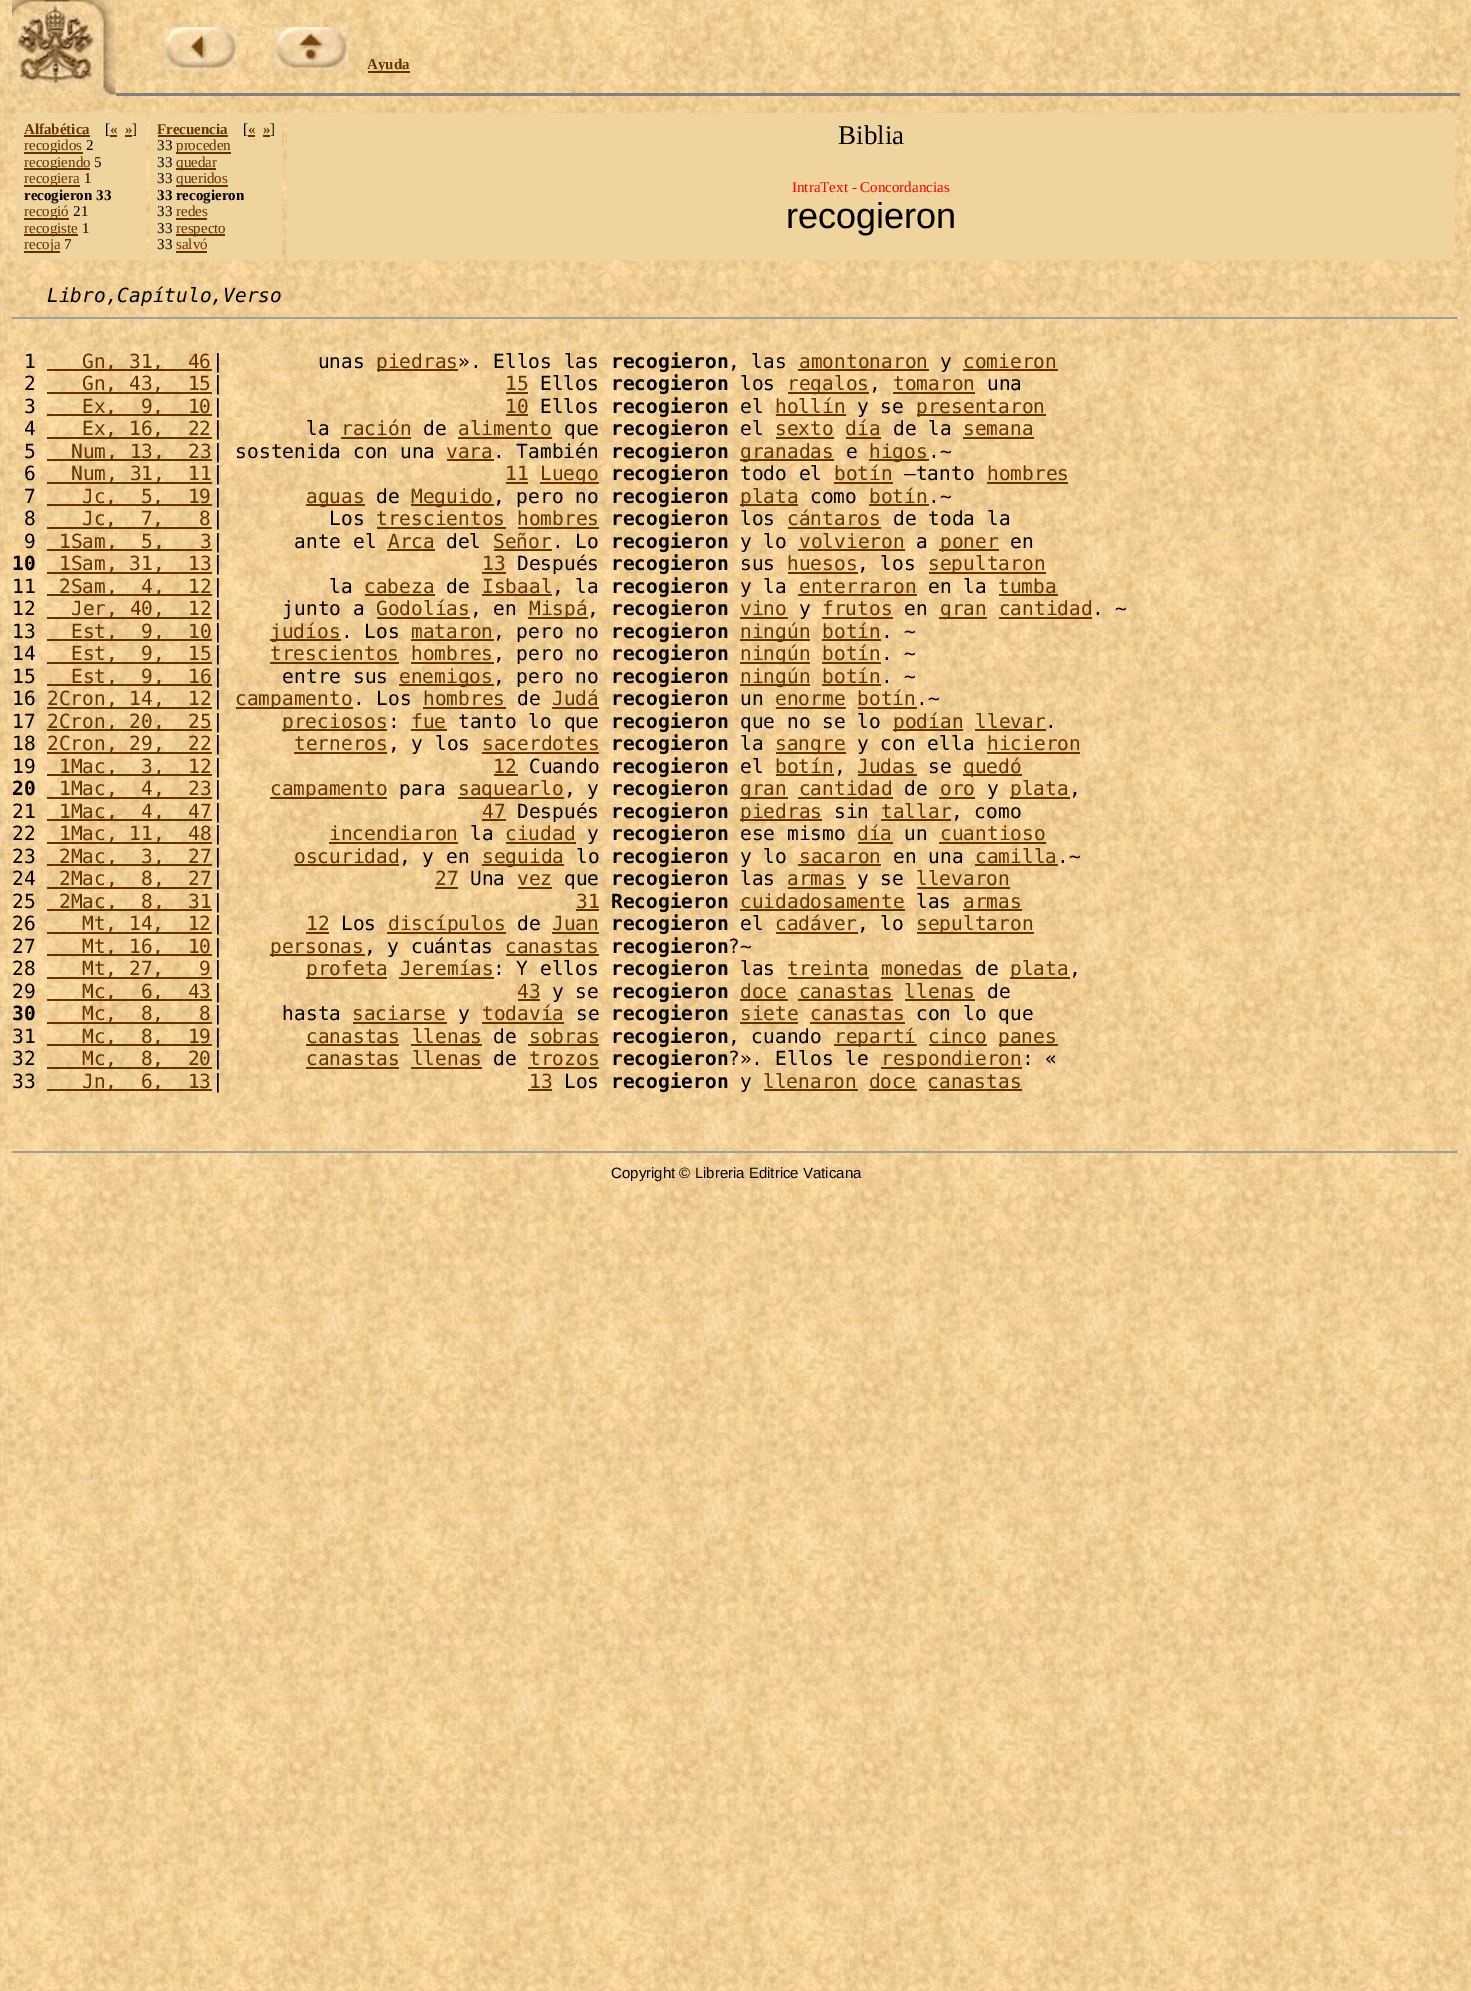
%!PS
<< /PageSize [1471 1991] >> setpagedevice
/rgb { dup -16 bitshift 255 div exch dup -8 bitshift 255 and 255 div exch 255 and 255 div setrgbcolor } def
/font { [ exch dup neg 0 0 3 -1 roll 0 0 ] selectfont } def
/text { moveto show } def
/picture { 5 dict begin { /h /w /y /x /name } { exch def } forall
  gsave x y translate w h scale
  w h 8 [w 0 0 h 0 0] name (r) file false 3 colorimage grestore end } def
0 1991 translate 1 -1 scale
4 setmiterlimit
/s1 { /LiberationSerif-Bold 15 font 16#663300 rgb } def
/s2 { /LiberationSerif-Regular 15 font 16#000000 rgb } def
/s3 { /LiberationSerif-Regular 15 font 16#663300 rgb } def
/s4 { /LiberationSerif-Bold 15 font 16#000000 rgb } def
/s5 { /LiberationSerif-Regular 27 font 16#000000 rgb } def
/s6 { /LiberationSerif-Regular 15 font 16#FF0000 rgb } def
/s7 { /LiberationSans-Regular 36 font 16#000000 rgb } def
/s8 { /DejaVuSansMono-Italic 19.5 font 16#000000 rgb } def
/s9 { /DejaVuSansMono-Regular 19.5 font 16#000000 rgb } def
/s10 { /DejaVuSansMono-Regular 19.5 font 16#663300 rgb } def
/s11 { /DejaVuSansMono-Bold 19.5 font 16#000000 rgb } def
/s12 { /LiberationSans-Regular 15 font 16#000000 rgb } def
16#FFFFFF rgb
0 0 1471 1991 rectfill
(pic1.raw) 0 0 1471 1991 picture
(pic2.raw) 12 0 104 98 picture
(pic3.raw) 163 27 74 42 picture
(pic4.raw) 274 27 74 42 picture
16#663300 rgb
368 71 42 2 rectfill
s1
(Ayuda) 367 69 text
16#808080 rgb
116 93 1344 3 rectfill
16#EFD49D rgb
17 113 129 147 rectfill
s1
(Alfabética) 24 134 text
24 135 66 2 rectfill
s2
([) 105 134 text
s1
(«) 110 134 text
110 135 7 2 rectfill
(») 125 134 text
125 135 7 2 rectfill
s2
(]) 132 134 text
16#663300 rgb
24 152 59 2 rectfill
(recogidos) 24 150 text
s2
(2) 86 150 text
16#663300 rgb
24 168 66 2 rectfill
(recogiendo) 24 167 text
s2
(5) 94 167 text
16#663300 rgb
24 185 56 2 rectfill
(recogiera) 24 183 text
s2
(1) 84 183 text
s4
(recogieron 33) 24 200 text
16#663300 rgb
24 218 45 2 rectfill
s3
(recogió) 24 216 text
s2
(21) 73 216 text
16#663300 rgb
24 234 54 2 rectfill
(recogiste) 24 233 text
s2
(1) 82 233 text
16#663300 rgb
24 251 36 2 rectfill
(recoja) 24 249 text
s2
(7) 64 249 text
16#EFD49D rgb
150 113 132 147 rectfill
s1
(Frecuencia) 157 134 text
158 135 70 2 rectfill
s2
([) 243 134 text
s1
(«) 248 134 text
248 135 7 2 rectfill
(») 263 134 text
263 135 7 2 rectfill
s2
(]) 270 134 text
(33) 157 150 text
16#663300 rgb
176 152 55 2 rectfill
(proceden) 176 150 text
s2
(33) 157 167 text
16#663300 rgb
176 168 40 2 rectfill
(quedar) 176 167 text
s2
(33) 157 183 text
16#663300 rgb
176 185 52 2 rectfill
(queridos) 176 183 text
s4
(33 recogieron) 157 200 text
s2
(33) 157 216 text
s3
(redes) 176 216 text
176 218 31 2 rectfill
s2
(33) 157 233 text
16#663300 rgb
176 234 49 2 rectfill
(respecto) 176 233 text
s2
(33) 157 249 text
s3
(salvó) 176 249 text
176 251 31 2 rectfill
16#EFD49D rgb
287 113 1168 147 rectfill
s5
(Biblia) 838 144 text
s6
(IntraText - Concordancias) 792 192 text
s7
(recogieron) 786 228 text
s8
(Libro,Capítulo,Verso) 47 302 text
16#9F9F9F rgb
12 317 1448 2 rectfill
16#EEEEEE rgb
1458 317 2 2 rectfill
s9
(1) 24 368 text
16#663300 rgb
47 369 165 2 rectfill
(Gn, 31,  46) 82 368 text
s9
(|        unas) 212 368 text
16#663300 rgb
377 369 81 2 rectfill
(piedras) 376 368 text
s9
(». Ellos las) 458 368 text
s11
(recogieron) 611 368 text
s9
(, las) 728 368 text
s10
(amontonaron) 799 368 text
798 369 131 2 rectfill
s9
(y) 940 368 text
s10
(comieron) 963 368 text
963 369 95 2 rectfill
s9
(2) 24 390 text
16#663300 rgb
47 392 165 2 rectfill
(Gn, 43,  15) 82 390 text
s9
(|) 212 390 text
s10
(15) 505 390 text
506 392 22 2 rectfill
s9
(Ellos) 540 390 text
s11
(recogieron) 611 390 text
s9
(los) 740 390 text
16#663300 rgb
788 392 81 2 rectfill
(regalos) 787 390 text
s9
(,) 869 390 text
s10
(tomaron) 893 390 text
893 392 82 2 rectfill
s9
(una) 987 390 text
(3) 24 413 text
16#663300 rgb
47 414 165 2 rectfill
(Ex,  9,  10) 82 413 text
s9
(|) 212 413 text
s10
(10) 505 413 text
506 414 22 2 rectfill
s9
(Ellos) 540 413 text
s11
(recogieron) 611 413 text
s9
(el) 740 413 text
s10
(hollín) 775 413 text
776 414 70 2 rectfill
s9
(y se) 857 413 text
16#663300 rgb
917 414 129 2 rectfill
(presentaron) 916 413 text
s9
(4) 24 435 text
16#663300 rgb
47 437 165 2 rectfill
(Ex, 16,  22) 82 435 text
s9
(|       la) 212 435 text
s10
(ración) 341 435 text
341 437 70 2 rectfill
s9
(de) 423 435 text
s10
(alimento) 458 435 text
458 437 94 2 rectfill
s9
(que) 564 435 text
s11
(recogieron) 611 435 text
s9
(el) 740 435 text
s10
(sexto día) 775 435 text
776 437 58 2 rectfill
s9
(de la) 893 435 text
s10
(semana) 963 435 text
963 437 71 2 rectfill
846 437 35 2 rectfill
s9
(5) 24 458 text
16#663300 rgb
47 459 165 2 rectfill
(Num, 13,  23) 71 458 text
s9
(| sostenida con una) 212 458 text
s10
(vara) 446 458 text
447 459 47 2 rectfill
s9
(. También) 493 458 text
s11
(recogieron) 611 458 text
16#663300 rgb
740 459 94 2 rectfill
s10
(granadas) 740 458 text
s9
(e) 846 458 text
16#663300 rgb
869 459 60 2 rectfill
(higos) 869 458 text
s9
(.~) 928 458 text
(6) 24 480 text
16#663300 rgb
47 482 165 2 rectfill
(Num, 31,  11) 71 480 text
s9
(|) 212 480 text
s10
(11) 505 480 text
506 482 22 2 rectfill
540 482 59 2 rectfill
(Luego) 540 480 text
s11
(recogieron) 611 480 text
s9
(todo el) 740 480 text
s10
(botín) 834 480 text
834 482 59 2 rectfill
s9
(–tanto) 904 480 text
s10
(hombres) 987 480 text
987 482 81 2 rectfill
s9
(7) 24 503 text
16#663300 rgb
47 504 165 2 rectfill
(Jc,  5,  19) 82 503 text
s9
(|) 212 503 text
16#663300 rgb
306 504 59 2 rectfill
(aguas) 306 503 text
s9
(de) 376 503 text
16#663300 rgb
411 504 83 2 rectfill
(Meguido) 411 503 text
s9
(, pero no) 493 503 text
s11
(recogieron) 611 503 text
16#663300 rgb
740 504 58 2 rectfill
s10
(plata) 740 503 text
s9
(como) 810 503 text
s10
(botín) 869 503 text
869 504 60 2 rectfill
s9
(.~) 928 503 text
(8) 24 525 text
16#663300 rgb
47 527 165 2 rectfill
(Jc,  7,   8) 82 525 text
s9
(|         Los) 212 525 text
s10
(trescientos hombres) 376 525 text
377 527 129 2 rectfill
s11
(recogieron) 611 525 text
s9
(los) 740 525 text
s10
(cántaros) 787 525 text
788 527 93 2 rectfill
s9
(de toda la) 893 525 text
16#663300 rgb
518 527 81 2 rectfill
s9
(9) 24 548 text
16#663300 rgb
47 549 165 2 rectfill
(1Sam,  5,   3) 59 548 text
s9
(|      ante el) 212 548 text
s10
(Arca) 388 548 text
387 549 48 2 rectfill
s9
(del) 446 548 text
s10
(Señor) 493 548 text
494 549 58 2 rectfill
s9
(. Lo) 552 548 text
s11
(recogieron) 611 548 text
s9
(y lo) 740 548 text
s10
(volvieron) 799 548 text
798 549 107 2 rectfill
s9
(a) 916 548 text
16#663300 rgb
939 549 60 2 rectfill
(poner) 940 548 text
s9
(en) 1010 548 text
s11
(10) 12 570 text
16#663300 rgb
47 572 165 2 rectfill
s10
(1Sam, 31,  13) 59 570 text
s9
(|) 212 570 text
s10
(13) 482 570 text
482 572 24 2 rectfill
s9
(Después) 517 570 text
s11
(recogieron) 611 570 text
s9
(sus) 740 570 text
s10
(huesos) 787 570 text
788 572 70 2 rectfill
s9
(, los) 857 570 text
16#663300 rgb
929 572 117 2 rectfill
(sepultaron) 928 570 text
s9
(11) 12 593 text
16#663300 rgb
47 594 165 2 rectfill
(2Sam,  4,  12) 59 593 text
s9
(|         la) 212 593 text
s10
(cabeza) 364 593 text
365 594 70 2 rectfill
s9
(de) 446 593 text
s10
(Isbaal) 482 593 text
482 594 70 2 rectfill
s9
(, la) 552 593 text
s11
(recogieron) 611 593 text
s9
(y la) 740 593 text
s10
(enterraron) 799 593 text
798 594 119 2 rectfill
s9
(en la) 928 593 text
s10
(tumba) 998 593 text
999 594 59 2 rectfill
s9
(12) 12 615 text
16#663300 rgb
47 617 165 2 rectfill
(Jer, 40,  12) 71 615 text
s9
(|     junto a) 212 615 text
s10
(Godolías) 376 615 text
377 617 93 2 rectfill
s9
(, en) 470 615 text
16#663300 rgb
528 617 60 2 rectfill
(Mispá) 529 615 text
s9
(,) 587 615 text
s11
(recogieron) 611 615 text
s10
(vino) 740 615 text
740 617 48 2 rectfill
s9
(y) 799 615 text
s10
(frutos) 822 615 text
822 617 71 2 rectfill
s9
(en) 904 615 text
16#663300 rgb
939 617 48 2 rectfill
(gran cantidad) 940 615 text
s9
(. ~) 1092 615 text
16#663300 rgb
999 617 93 2 rectfill
s9
(13) 12 638 text
16#663300 rgb
47 639 165 2 rectfill
(Est,  9,  10) 71 638 text
s9
(|) 212 638 text
16#663300 rgb
270 639 71 2 rectfill
(judíos) 270 638 text
s9
(. Los) 341 638 text
s10
(mataron) 411 638 text
411 639 83 2 rectfill
s9
(, pero no) 493 638 text
s11
(recogieron) 611 638 text
16#663300 rgb
740 639 70 2 rectfill
s10
(ningún botín) 740 638 text
s9
(. ~) 881 638 text
16#663300 rgb
822 639 59 2 rectfill
s9
(14) 12 660 text
16#663300 rgb
47 662 165 2 rectfill
(Est,  9,  15) 71 660 text
s9
(|) 212 660 text
s10
(trescientos hombres) 270 660 text
270 662 129 2 rectfill
s9
(, pero no) 493 660 text
s11
(recogieron) 611 660 text
16#663300 rgb
740 662 70 2 rectfill
s10
(ningún botín) 740 660 text
s9
(. ~) 881 660 text
16#663300 rgb
411 662 83 2 rectfill
822 662 59 2 rectfill
s9
(15) 12 683 text
16#663300 rgb
47 684 165 2 rectfill
(Est,  9,  16) 71 683 text
s9
(|     entre sus) 212 683 text
16#663300 rgb
399 684 95 2 rectfill
(enemigos) 399 683 text
s9
(, pero no) 493 683 text
s11
(recogieron) 611 683 text
16#663300 rgb
740 684 70 2 rectfill
s10
(ningún botín) 740 683 text
s9
(. ~) 881 683 text
16#663300 rgb
822 684 59 2 rectfill
s9
(16) 12 705 text
16#663300 rgb
47 707 165 2 rectfill
(2Cron, 14,  12) 47 705 text
s9
(|) 212 705 text
16#663300 rgb
236 707 117 2 rectfill
(campamento) 235 705 text
s9
(. Los) 353 705 text
s10
(hombres) 423 705 text
423 707 83 2 rectfill
s9
(de) 517 705 text
s10
(Judá) 552 705 text
552 707 47 2 rectfill
s11
(recogieron) 611 705 text
s9
(un) 740 705 text
s10
(enorme botín) 775 705 text
776 707 70 2 rectfill
s9
(.~) 916 705 text
16#663300 rgb
858 707 59 2 rectfill
s9
(17) 12 728 text
16#663300 rgb
47 729 165 2 rectfill
(2Cron, 20,  25) 47 728 text
s9
(|) 212 728 text
16#663300 rgb
282 729 105 2 rectfill
(preciosos) 282 728 text
s9
(:) 388 728 text
s10
(fue) 411 728 text
411 729 36 2 rectfill
s9
(tanto lo que) 458 728 text
s11
(recogieron) 611 728 text
s9
(que no se lo) 740 728 text
16#663300 rgb
893 729 70 2 rectfill
(podían llevar) 893 728 text
s9
(.) 1045 728 text
16#663300 rgb
975 729 71 2 rectfill
s9
(18) 12 750 text
16#663300 rgb
47 752 165 2 rectfill
(2Cron, 29,  22) 47 750 text
s9
(|) 212 750 text
s10
(terneros) 294 750 text
294 752 93 2 rectfill
s9
(, y los) 388 750 text
s10
(sacerdotes) 482 750 text
482 752 117 2 rectfill
s11
(recogieron) 611 750 text
s9
(la) 740 750 text
16#663300 rgb
776 752 70 2 rectfill
(sangre) 775 750 text
s9
(y con ella) 857 750 text
s10
(hicieron) 987 750 text
987 752 93 2 rectfill
s9
(19) 12 773 text
16#663300 rgb
47 774 165 2 rectfill
(1Mac,  3,  12) 59 773 text
s9
(|) 212 773 text
s10
(12) 493 773 text
494 774 24 2 rectfill
s9
(Cuando) 529 773 text
s11
(recogieron) 611 773 text
s9
(el) 740 773 text
s10
(botín) 775 773 text
776 774 58 2 rectfill
s9
(,) 834 773 text
s10
(Judas) 857 773 text
858 774 59 2 rectfill
s9
(se) 928 773 text
16#663300 rgb
963 774 59 2 rectfill
(quedó) 963 773 text
s11
(20) 12 795 text
16#663300 rgb
47 797 165 2 rectfill
s10
(1Mac,  4,  23) 59 795 text
s9
(|) 212 795 text
16#663300 rgb
270 797 117 2 rectfill
(campamento) 270 795 text
s9
(para) 399 795 text
16#663300 rgb
458 797 106 2 rectfill
(saquearlo) 458 795 text
s9
(, y) 564 795 text
s11
(recogieron) 611 795 text
16#663300 rgb
740 797 48 2 rectfill
s10
(gran cantidad) 740 795 text
s9
(de) 904 795 text
s10
(oro) 940 795 text
939 797 36 2 rectfill
s9
(y) 987 795 text
16#663300 rgb
1010 797 60 2 rectfill
(plata) 1010 795 text
s9
(,) 1069 795 text
16#663300 rgb
798 797 95 2 rectfill
s9
(21) 12 818 text
16#663300 rgb
47 819 165 2 rectfill
(1Mac,  4,  47) 59 818 text
s9
(|) 212 818 text
s10
(47) 482 818 text
482 819 24 2 rectfill
s9
(Después) 517 818 text
s11
(recogieron) 611 818 text
16#663300 rgb
740 819 82 2 rectfill
s10
(piedras) 740 818 text
s9
(sin) 834 818 text
s10
(tallar) 881 818 text
881 819 70 2 rectfill
s9
(, como) 951 818 text
(22) 12 840 text
16#663300 rgb
47 842 165 2 rectfill
(1Mac, 11,  48) 59 840 text
s9
(|) 212 840 text
s10
(incendiaron) 329 840 text
329 842 129 2 rectfill
s9
(la) 470 840 text
s10
(ciudad) 505 840 text
506 842 70 2 rectfill
s9
(y) 587 840 text
s11
(recogieron) 611 840 text
s9
(ese mismo) 740 840 text
s10
(día) 857 840 text
858 842 35 2 rectfill
s9
(un) 904 840 text
s10
(cuantioso) 940 840 text
939 842 107 2 rectfill
s9
(23) 12 863 text
16#663300 rgb
47 864 165 2 rectfill
(2Mac,  3,  27) 59 863 text
s9
(|) 212 863 text
s10
(oscuridad) 294 863 text
294 864 105 2 rectfill
s9
(, y en) 399 863 text
16#663300 rgb
482 864 82 2 rectfill
(seguida) 482 863 text
s9
(lo) 576 863 text
s11
(recogieron) 611 863 text
s9
(y lo) 740 863 text
s10
(sacaron) 799 863 text
798 864 83 2 rectfill
s9
(en una) 893 863 text
s10
(camilla) 975 863 text
975 864 83 2 rectfill
s9
(.~) 1057 863 text
(24) 12 885 text
16#663300 rgb
47 887 165 2 rectfill
(2Mac,  8,  27) 59 885 text
s9
(|) 212 885 text
s10
(27) 435 885 text
435 887 23 2 rectfill
s9
(Una) 470 885 text
s10
(vez) 517 885 text
518 887 34 2 rectfill
s9
(que) 564 885 text
s11
(recogieron) 611 885 text
s9
(las) 740 885 text
s10
(armas) 787 885 text
788 887 58 2 rectfill
s9
(y se) 857 885 text
s10
(llevaron) 916 885 text
917 887 93 2 rectfill
s9
(25) 12 908 text
16#663300 rgb
47 909 165 2 rectfill
(2Mac,  8,  31) 59 908 text
s9
(|) 212 908 text
s10
(31) 576 908 text
576 909 23 2 rectfill
s11
(Recogieron) 611 908 text
s10
(cuidadosamente) 740 908 text
740 909 165 2 rectfill
s9
(las) 916 908 text
s10
(armas) 963 908 text
963 909 59 2 rectfill
s9
(26) 12 930 text
16#663300 rgb
47 932 165 2 rectfill
(Mt, 14,  12) 82 930 text
s9
(|) 212 930 text
s10
(12) 306 930 text
306 932 23 2 rectfill
s9
(Los) 341 930 text
16#663300 rgb
387 932 119 2 rectfill
(discípulos) 388 930 text
s9
(de) 517 930 text
s10
(Juan) 552 930 text
552 932 47 2 rectfill
s11
(recogieron) 611 930 text
s9
(el) 740 930 text
s10
(cadáver) 775 930 text
776 932 82 2 rectfill
s9
(, lo) 857 930 text
16#663300 rgb
917 932 117 2 rectfill
(sepultaron) 916 930 text
s9
(27) 12 953 text
16#663300 rgb
47 954 165 2 rectfill
(Mt, 16,  10) 82 953 text
s9
(|) 212 953 text
16#663300 rgb
270 954 95 2 rectfill
(personas) 270 953 text
s9
(, y cuántas) 364 953 text
s10
(canastas) 505 953 text
506 954 93 2 rectfill
s11
(recogieron) 611 953 text
s9
(?~) 728 953 text
(28) 12 975 text
16#663300 rgb
47 977 165 2 rectfill
(Mt, 27,   9) 82 975 text
s9
(|) 212 975 text
16#663300 rgb
306 977 81 2 rectfill
(profeta Jeremías) 306 975 text
s9
(: Y ellos) 493 975 text
s11
(recogieron) 611 975 text
s9
(las) 740 975 text
s10
(treinta monedas) 787 975 text
788 977 81 2 rectfill
s9
(de) 975 975 text
16#663300 rgb
1010 977 60 2 rectfill
(plata) 1010 975 text
s9
(,) 1069 975 text
16#663300 rgb
399 977 95 2 rectfill
881 977 82 2 rectfill
s9
(29) 12 998 text
16#663300 rgb
47 999 165 2 rectfill
(Mc,  6,  43) 82 998 text
s9
(|) 212 998 text
s10
(43) 517 998 text
518 999 22 2 rectfill
s9
(y se) 552 998 text
s11
(recogieron) 611 998 text
s10
(doce canastas llenas) 740 998 text
740 999 48 2 rectfill
s9
(de) 987 998 text
16#663300 rgb
798 999 95 2 rectfill
905 999 70 2 rectfill
s11
(30) 12 1020 text
16#663300 rgb
47 1022 165 2 rectfill
s10
(Mc,  8,   8) 82 1020 text
s9
(|     hasta) 212 1020 text
s10
(saciarse) 352 1020 text
353 1022 94 2 rectfill
s9
(y) 458 1020 text
s10
(todavía) 482 1020 text
482 1022 82 2 rectfill
s9
(se) 576 1020 text
s11
(recogieron) 611 1020 text
s10
(siete canastas) 740 1020 text
740 1022 58 2 rectfill
s9
(con lo que) 916 1020 text
16#663300 rgb
810 1022 95 2 rectfill
s9
(31) 12 1043 text
16#663300 rgb
47 1044 165 2 rectfill
(Mc,  8,  19) 82 1043 text
s9
(|) 212 1043 text
s10
(canastas llenas) 306 1043 text
306 1044 93 2 rectfill
s9
(de) 493 1043 text
s10
(sobras) 529 1043 text
528 1044 71 2 rectfill
s11
(recogieron) 611 1043 text
s9
(, cuando) 728 1043 text
16#663300 rgb
834 1044 83 2 rectfill
(repartí cinco) 834 1043 text
999 1044 59 2 rectfill
(panes) 998 1043 text
411 1044 71 2 rectfill
929 1044 58 2 rectfill
s9
(32) 12 1065 text
16#663300 rgb
47 1067 165 2 rectfill
(Mc,  8,  20) 82 1065 text
s9
(|) 212 1065 text
s10
(canastas llenas) 306 1065 text
306 1067 93 2 rectfill
s9
(de) 493 1065 text
s10
(trozos) 529 1065 text
528 1067 71 2 rectfill
s11
(recogieron) 611 1065 text
s9
(?». Ellos le) 728 1065 text
16#663300 rgb
881 1067 141 2 rectfill
(respondieron) 881 1065 text
s9
(: «) 1022 1065 text
16#663300 rgb
411 1067 71 2 rectfill
s9
(33) 12 1088 text
16#663300 rgb
47 1089 165 2 rectfill
(Jn,  6,  13) 82 1088 text
s9
(|) 212 1088 text
s10
(13) 529 1088 text
528 1089 24 2 rectfill
s9
(Los) 564 1088 text
s11
(recogieron) 611 1088 text
s9
(y) 740 1088 text
s10
(llenaron doce canastas) 763 1088 text
764 1089 94 2 rectfill
869 1089 48 2 rectfill
929 1089 93 2 rectfill
16#9F9F9F rgb
12 1151 1448 2 rectfill
16#EEEEEE rgb
1458 1151 2 2 rectfill
s12
(Copyright © Libreria Editrice Vaticana) 611 1178 text
showpage
